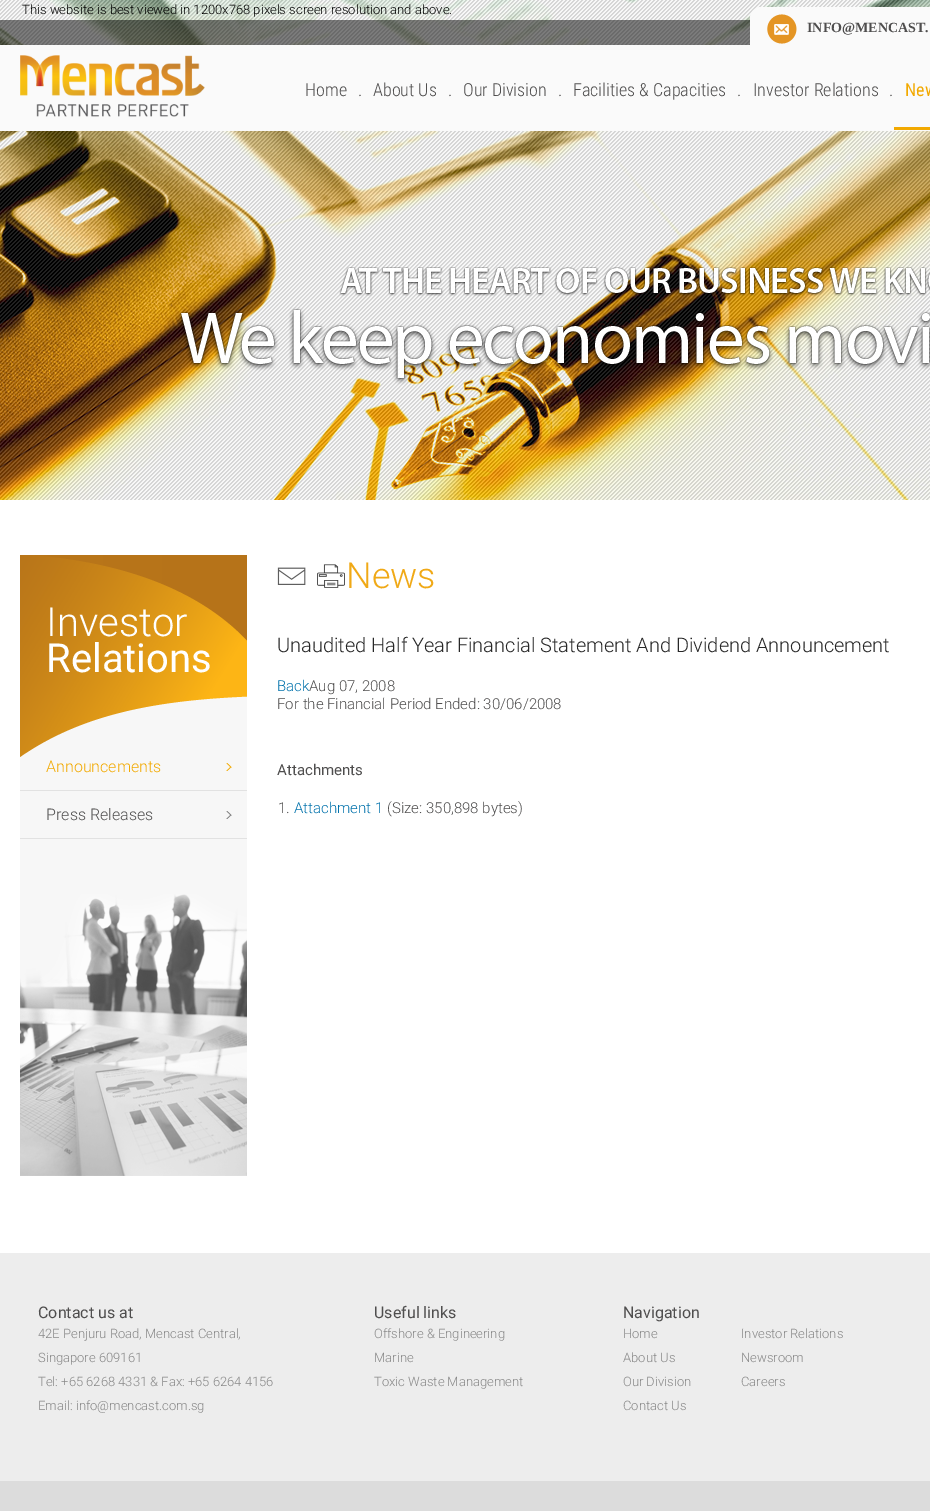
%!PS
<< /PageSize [930 1511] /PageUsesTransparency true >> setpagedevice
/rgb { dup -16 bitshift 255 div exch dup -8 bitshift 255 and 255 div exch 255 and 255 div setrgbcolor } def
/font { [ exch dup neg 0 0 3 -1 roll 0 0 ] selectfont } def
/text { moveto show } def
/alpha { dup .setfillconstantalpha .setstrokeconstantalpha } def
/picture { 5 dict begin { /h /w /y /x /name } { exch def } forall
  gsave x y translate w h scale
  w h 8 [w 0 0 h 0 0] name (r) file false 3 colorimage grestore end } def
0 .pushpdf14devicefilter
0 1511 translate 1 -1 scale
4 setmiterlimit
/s1 { /Roboto-Light 13 font 16#000000 rgb } def
/s2 { /LiberationSerif-Bold 14 font 16#4F4E4E rgb } def
/s3 { /RobotoCondensed-Light 18 font 16#4F4E4E rgb } def
/s4 { /RobotoCondensed-Regular 18 font 16#F2A900 rgb } def
/s5 { /Roboto-Light 40 font 16#FFFFFF rgb } def
/s6 { /Roboto-Regular 40 font 16#FFFFFF rgb } def
/s7 { /Roboto-Light 16 font 16#F2A900 rgb } def
/s8 { /Roboto-Light 16 font 16#4F4E4E rgb } def
/s9 { /Roboto-Light 36 font 16#F0A916 rgb } def
/s10 { /Roboto-Light 20 font 16#272727 rgb } def
/s11 { /Roboto-Light 15 font 16#0071AB rgb } def
/s12 { /Roboto-Light 15 font 16#4F4E4E rgb } def
/s13 { /Roboto-Regular 15 font 16#4F4E4E rgb } def
/s14 { /Roboto-Regular 16 font 16#4F4E4E rgb } def
/s15 { /Roboto-Light 13 font 16#878787 rgb } def
16#FFFFFF rgb
0 0 930 1511 rectfill
(pic1.raw) 0 0 930 500 picture
s1
(This website is best viewed in 1200x768 pixels screen resolution and above.) 22 14 text
0.5 alpha
0 20 750 25 rectfill
1 alpha
16#FAFAFA rgb
0 45 930 86 rectfill
761 7 moveto 930 7 lineto 930 54 lineto 750 54 lineto 750 18 lineto 750 12 755 7 761 7 curveto closepath fill
(pic2.raw) 767 14 30 30 picture
s2
(INFO@MENCAST.) 807 32 text
(pic3.raw) 20 55 185 62 picture
s3
(Home) 305 96 text
(.) 358 96 text
(About Us) 373 96 text
(.) 448 96 text
(Our Division) 463 96 text
(.) 558 96 text
(Facilities & Capacities) 573 96 text
(.) 737 96 text
(Investor Relations) 753 96 text
(.) 889 96 text
s4
(New) 905 96 text
894 127 36 3 rectfill
16#F7F7F7 rgb
20 757 227 419 rectfill
(pic4.raw) 20 555 227 202 picture
s5
(Investor) 46 636 text
s6
(Relations) 46 672 text
16#E2E2E2 rgb
20 790 227 1 rectfill
(pic5.raw) 226 763 6 8 picture
s7
(Announcements) 46 772 text
16#E2E2E2 rgb
20 838 227 1 rectfill
(pic6.raw) 226 811 6 8 picture
s8
(Press Releases) 46 820 text
(pic7.raw) 20 894 227 282 picture
(pic8.raw) 277 567 29 18 picture
(pic9.raw) 317 564 28 24 picture
s9
(News) 346 588 text
s10
(Unaudited Half Year Financial Statement And Dividend Announcement) 277 652 text
s11
(Back) 277 691 text
s12
(Aug 07, 2008) 309 691 text
(For the Financial Period Ended: 30/06/2008) 277 709 text
s13
(Attachments) 277 775 text
s12
(1.) 278 813 text
s11
(Attachment 1) 294 813 text
s12
(\(Size: 350,898 bytes\)) 387 813 text
16#EDEDED rgb
0 1253 930 228 rectfill
s14
(Contact us at) 38 1318 text
s15
(42E Penjuru Road, Mencast Central,) 38 1338 text
(Singapore 609161) 38 1362 text
(Tel: +65 6268 4331 & Fax: +65 6264 4156) 38 1386 text
(Email: info@mencast.com.sg) 38 1410 text
s14
(Useful links) 374 1318 text
s15
(Offshore & Engineering) 374 1338 text
(Marine) 374 1362 text
(Toxic Waste Management) 374 1386 text
s14
(Navigation) 623 1318 text
s15
(Home) 623 1338 text
(About Us) 623 1362 text
(Our Division) 623 1386 text
(Contact Us) 623 1410 text
(Investor Relations) 741 1338 text
(Newsroom) 741 1362 text
(Careers) 741 1386 text
16#DCDCDC rgb
0 1481 930 30 rectfill
.poppdf14devicefilter showpage
